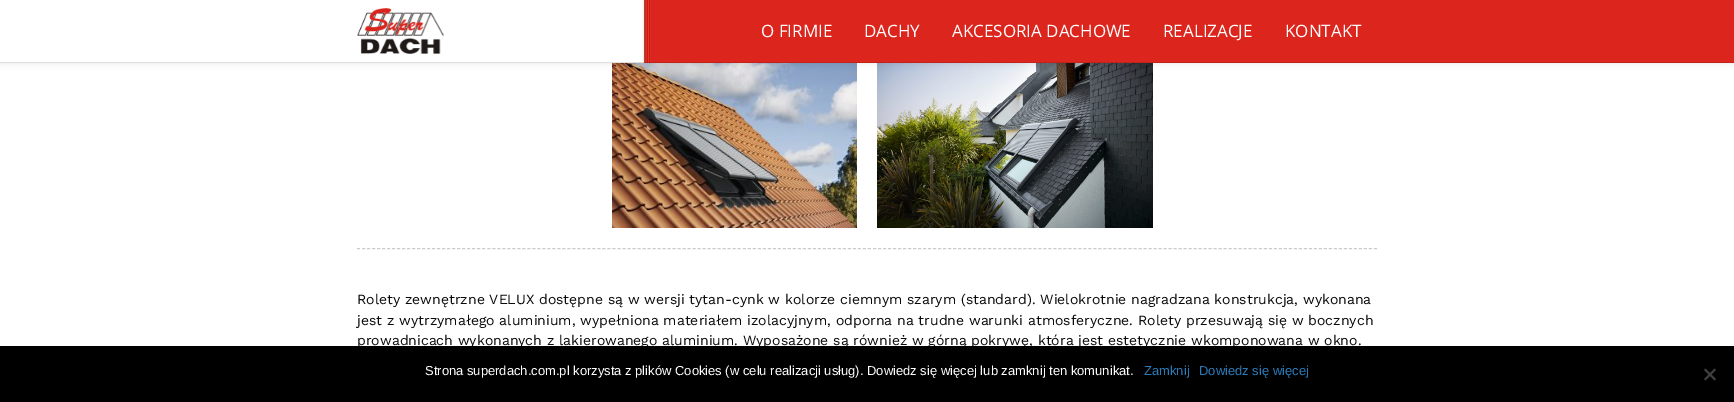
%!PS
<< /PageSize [1734 402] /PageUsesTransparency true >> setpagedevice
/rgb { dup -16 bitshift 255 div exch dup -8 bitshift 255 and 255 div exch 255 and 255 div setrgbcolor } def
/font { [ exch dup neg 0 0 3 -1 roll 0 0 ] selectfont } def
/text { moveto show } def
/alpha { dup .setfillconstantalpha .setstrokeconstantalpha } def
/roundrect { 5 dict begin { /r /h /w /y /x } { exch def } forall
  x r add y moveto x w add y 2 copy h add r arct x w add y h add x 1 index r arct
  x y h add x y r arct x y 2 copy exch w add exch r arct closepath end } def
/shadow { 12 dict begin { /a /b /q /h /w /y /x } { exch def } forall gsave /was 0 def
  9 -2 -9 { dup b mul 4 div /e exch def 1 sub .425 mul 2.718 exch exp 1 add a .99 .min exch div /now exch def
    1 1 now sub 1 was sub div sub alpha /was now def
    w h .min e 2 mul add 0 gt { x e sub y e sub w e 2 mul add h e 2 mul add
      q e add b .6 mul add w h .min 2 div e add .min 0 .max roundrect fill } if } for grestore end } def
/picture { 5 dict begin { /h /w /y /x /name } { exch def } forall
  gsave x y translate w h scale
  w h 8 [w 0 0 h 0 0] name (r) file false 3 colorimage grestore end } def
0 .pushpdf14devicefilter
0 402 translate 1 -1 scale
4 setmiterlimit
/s1 { /OpenSans-Regular 17 font 16#FFFFFF rgb } def
/s2 { /WorkSans-Regular 14 font 16#0A0A0A rgb } def
/s3 { /LiberationSans-Regular 13 font 16#FFFFFF rgb } def
/s4 { /LiberationSans-Regular 13 font 16#2B7BB9 rgb } def
16#FFFFFF rgb
0 0 1734 402 rectfill
(pic3.raw) 612 63 245 165 picture
(pic4.raw) 877 63 276 165 picture
16#000000 rgb
0 0 1734 63 0 3.5 0.1 shadow
16#DC251D rgb
657 0 1077 63 rectfill
(pic1.raw) 0 0 657 63 picture
0.13 alpha
16#0A0A0A rgb
0 62 1734 1 rectfill
1 alpha
(pic2.raw) 357 8 87 46 picture
s1
(O FIRMIE) 761 37 text
(DACHY) 864 37 text
(AKCESORIA DACHOWE) 952 37 text
(REALIZACJE) 1163 37 text
(KONTAKT) 1285 37 text
16#CCCCCC rgb
[3 2.01] 0 setdash
357 248.5 moveto 1377 248.5 lineto stroke
s2
(Rolety zewnętrzne VELUX dostępne są w wersji tytan-cynk w kolorze ciemnym szarym \(standard\). Wielokrotnie nagradzana konstrukcja, wykonana) 357 304 text
(jest z wytrzymałego aluminium, wypełniona materiałem izolacyjnym, odporna na trudne warunki atmosferyczne. Rolety przesuwają się w bocznych) 357 325 text
(prowadnicach wykonanych z lakierowanego aluminium. Wyposażone są również w górną pokrywę, która jest estetycznie wkomponowana w okno.) 357 345 text
16#000000 rgb
0 346 1734 56 rectfill
s3
(Strona superdach.com.pl korzysta z plików Cookies \(w celu realizacji usług\). Dowiedz się więcej lub zamknij ten komunikat.) 425 375 text
s4
(Zamknij) 1144 375 text
(Dowiedz się więcej) 1199 375 text
16#404040 rgb
1714.5 368.5 moveto 1716 370 lineto 1705.5 380.5 lineto 1704 379 lineto closepath fill
1704 370 moveto 1705.5 368.5 lineto 1716 379 lineto 1714.5 380.5 lineto closepath fill
.poppdf14devicefilter showpage
